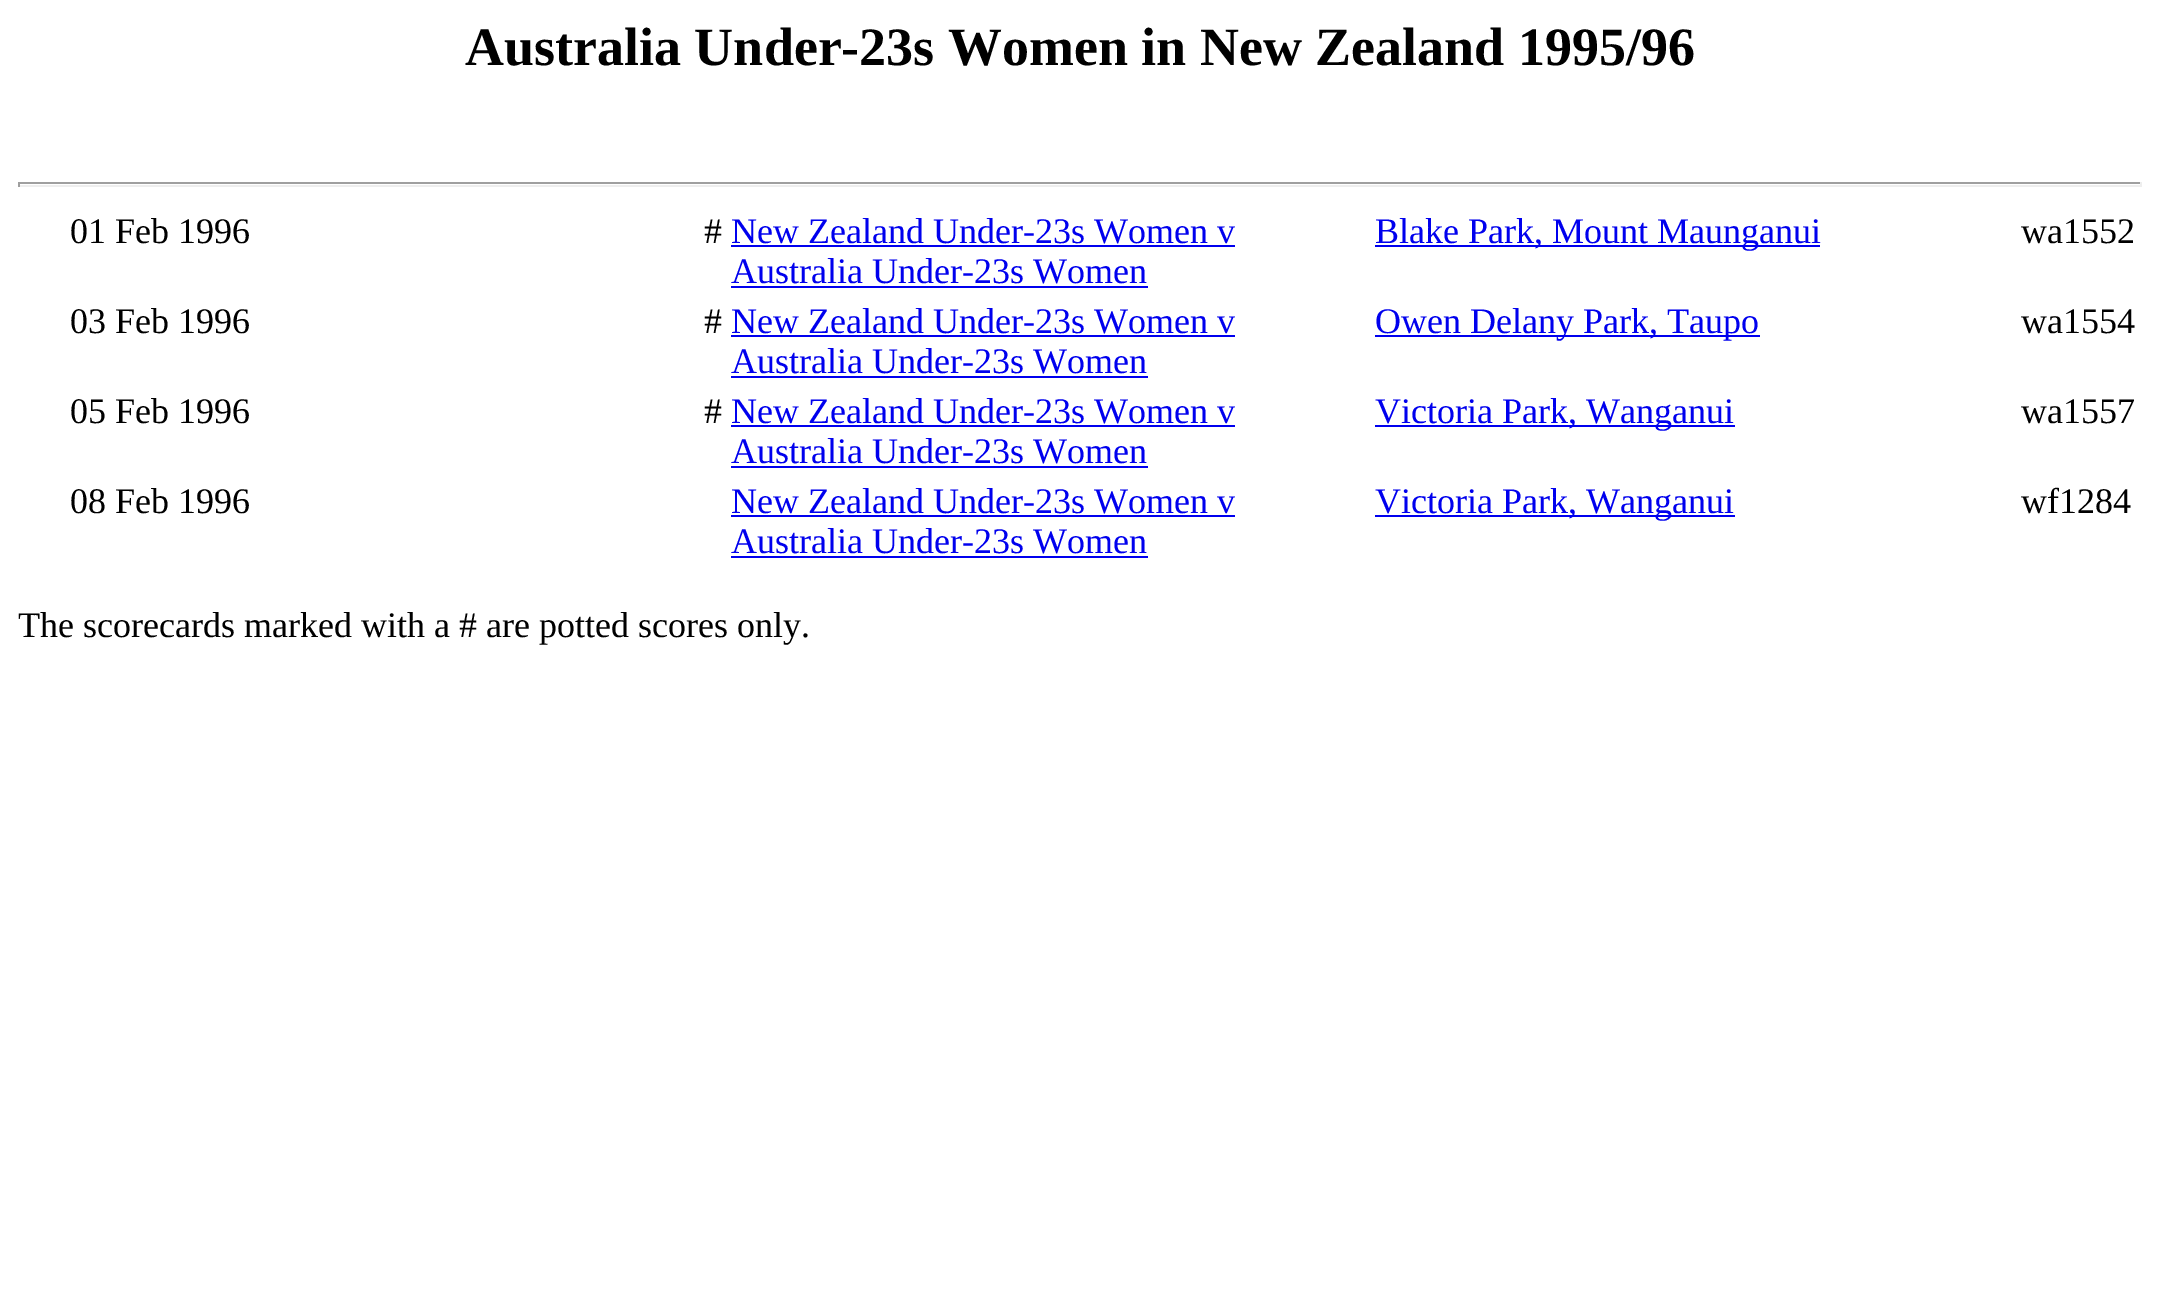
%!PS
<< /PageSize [2160 1308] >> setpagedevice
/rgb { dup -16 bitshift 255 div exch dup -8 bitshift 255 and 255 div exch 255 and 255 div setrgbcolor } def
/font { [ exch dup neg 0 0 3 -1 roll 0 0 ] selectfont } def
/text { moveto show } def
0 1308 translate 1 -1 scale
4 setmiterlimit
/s1 { /LiberationSerif-Bold 54 font 16#000000 rgb } def
/s2 { /LiberationSerif-Regular 36 font 16#000000 rgb } def
/s3 { /LiberationSerif-Regular 36 font 16#0000EE rgb } def
16#FFFFFF rgb
0 0 2160 1308 rectfill
s1
(Australia Under-23s Women in New Zealand 1995/96) 465 65 text
16#9F9F9F rgb
18 182 2124 2 rectfill
16#EEEEEE rgb
2140 182 2 5 rectfill
18 185 2124 2 rectfill
16#9F9F9F rgb
18 182 2 5 rectfill
s2
(01 Feb 1996) 70 243 text
(#) 704 243 text
s3
(New Zealand Under-23s Women v) 731 243 text
731 245 504 2 rectfill
(Australia Under-23s Women) 731 283 text
731 286 417 2 rectfill
1375 245 445 2 rectfill
(Blake Park, Mount Maunganui) 1375 243 text
s2
(wa1552) 2021 243 text
(03 Feb 1996) 70 333 text
(#) 704 333 text
s3
(New Zealand Under-23s Women v) 731 333 text
731 335 504 2 rectfill
(Australia Under-23s Women) 731 373 text
731 376 417 2 rectfill
1375 335 385 2 rectfill
(Owen Delany Park, Taupo) 1375 333 text
s2
(wa1554) 2021 333 text
(05 Feb 1996) 70 423 text
(#) 704 423 text
s3
(New Zealand Under-23s Women v) 731 423 text
731 425 504 2 rectfill
(Australia Under-23s Women) 731 463 text
731 466 417 2 rectfill
1375 425 360 2 rectfill
(Victoria Park, Wanganui) 1375 423 text
s2
(wa1557) 2021 423 text
(08 Feb 1996) 70 513 text
s3
(New Zealand Under-23s Women v) 731 513 text
731 515 504 2 rectfill
(Australia Under-23s Women) 731 553 text
731 556 417 2 rectfill
1375 515 360 2 rectfill
(Victoria Park, Wanganui) 1375 513 text
s2
(wf1284) 2021 513 text
(The scorecards marked with a # are potted scores only.) 18 637 text
showpage
